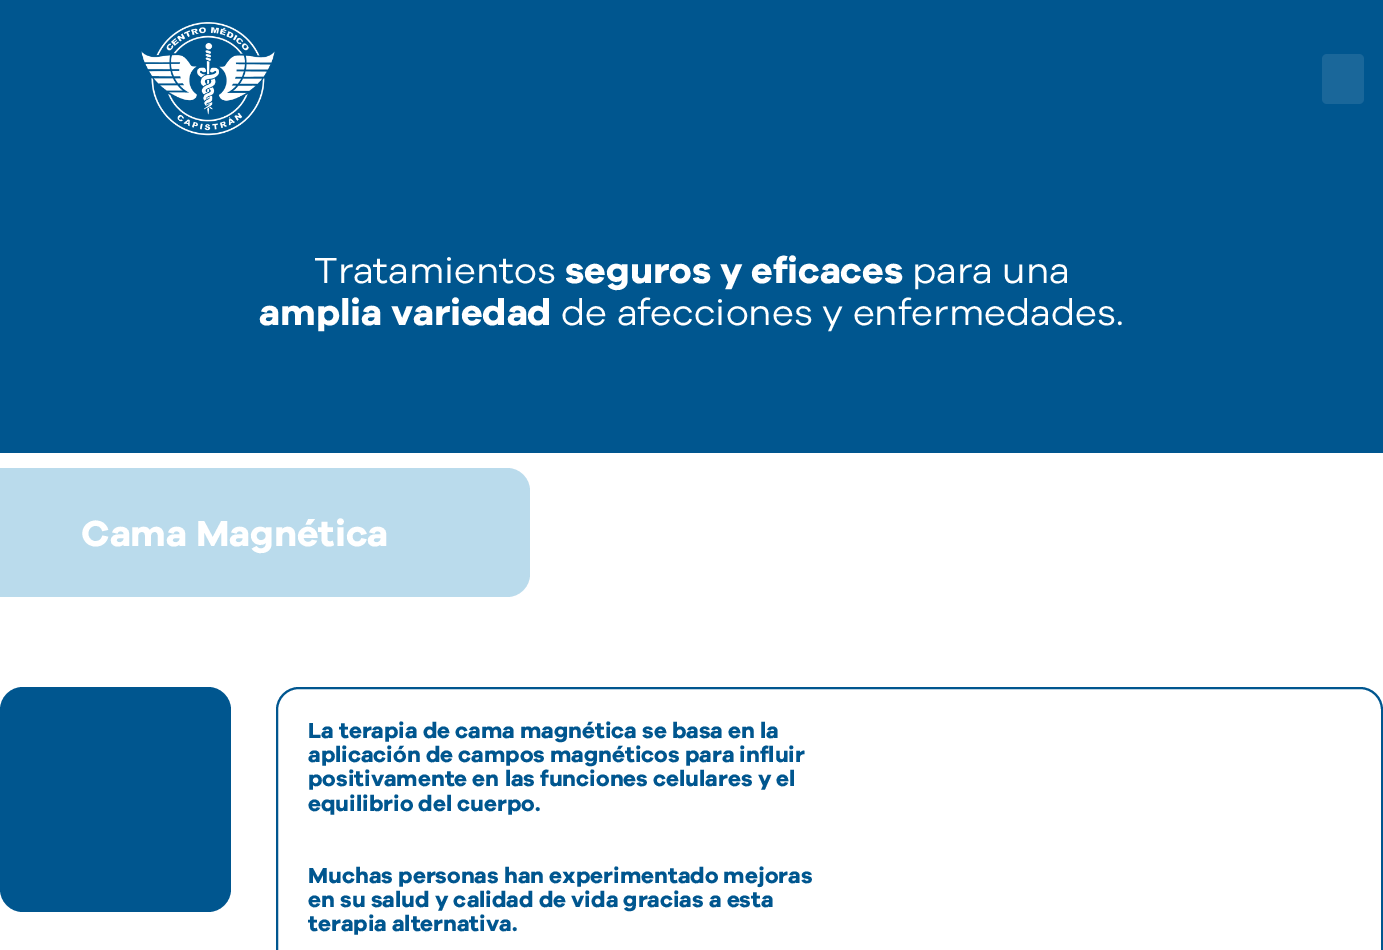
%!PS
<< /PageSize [1383 950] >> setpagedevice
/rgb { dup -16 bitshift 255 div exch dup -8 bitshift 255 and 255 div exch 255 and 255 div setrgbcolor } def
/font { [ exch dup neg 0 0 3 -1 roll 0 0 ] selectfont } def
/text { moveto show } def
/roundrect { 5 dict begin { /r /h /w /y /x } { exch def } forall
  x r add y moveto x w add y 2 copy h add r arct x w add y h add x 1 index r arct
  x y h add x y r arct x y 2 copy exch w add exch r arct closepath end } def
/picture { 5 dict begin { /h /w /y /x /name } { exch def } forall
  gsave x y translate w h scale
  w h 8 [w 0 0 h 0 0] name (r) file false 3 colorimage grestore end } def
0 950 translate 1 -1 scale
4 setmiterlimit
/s1 { /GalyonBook-Regular 37.5 font 16#FFFFFF rgb } def
/s2 { /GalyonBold-Bold 37.5 font 16#FFFFFF rgb } def
/s3 { /GalyonBold-Bold 22.5 font 16#00568F rgb } def
16#FFFFFF rgb
0 0 1383 950 rectfill
16#00568F rgb
0 0 1383 453 rectfill
(pic1.raw) 141 22 134 114 picture
16#1A679A rgb
1322 54 42 50 5 roundrect fill
s1
(Tratamientos) 314 283 text
s2
(seguros y eficaces) 565 283 text
s1
(para una) 912 283 text
s2
(amplia variedad) 259 325 text
s1
(de afecciones y enfermedades.) 561 325 text
16#BADBEC rgb
-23 468 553 129 23 roundrect fill
s2
(Cama Magnética) 81 546 text
16#00568F rgb
0 687 231 225 23 roundrect fill
2 setlinewidth
277 688 1105 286 22 roundrect stroke
s3
(La terapia de cama magnética se basa en la) 308 738 text
(aplicación de campos magnéticos para influir) 308 762 text
(positivamente en las funciones celulares y el) 308 786 text
(equilibrio del cuerpo.) 308 811 text
(Muchas personas han experimentado mejoras) 308 883 text
(en su salud y calidad de vida gracias a esta) 308 907 text
(terapia alternativa.) 308 931 text
showpage
